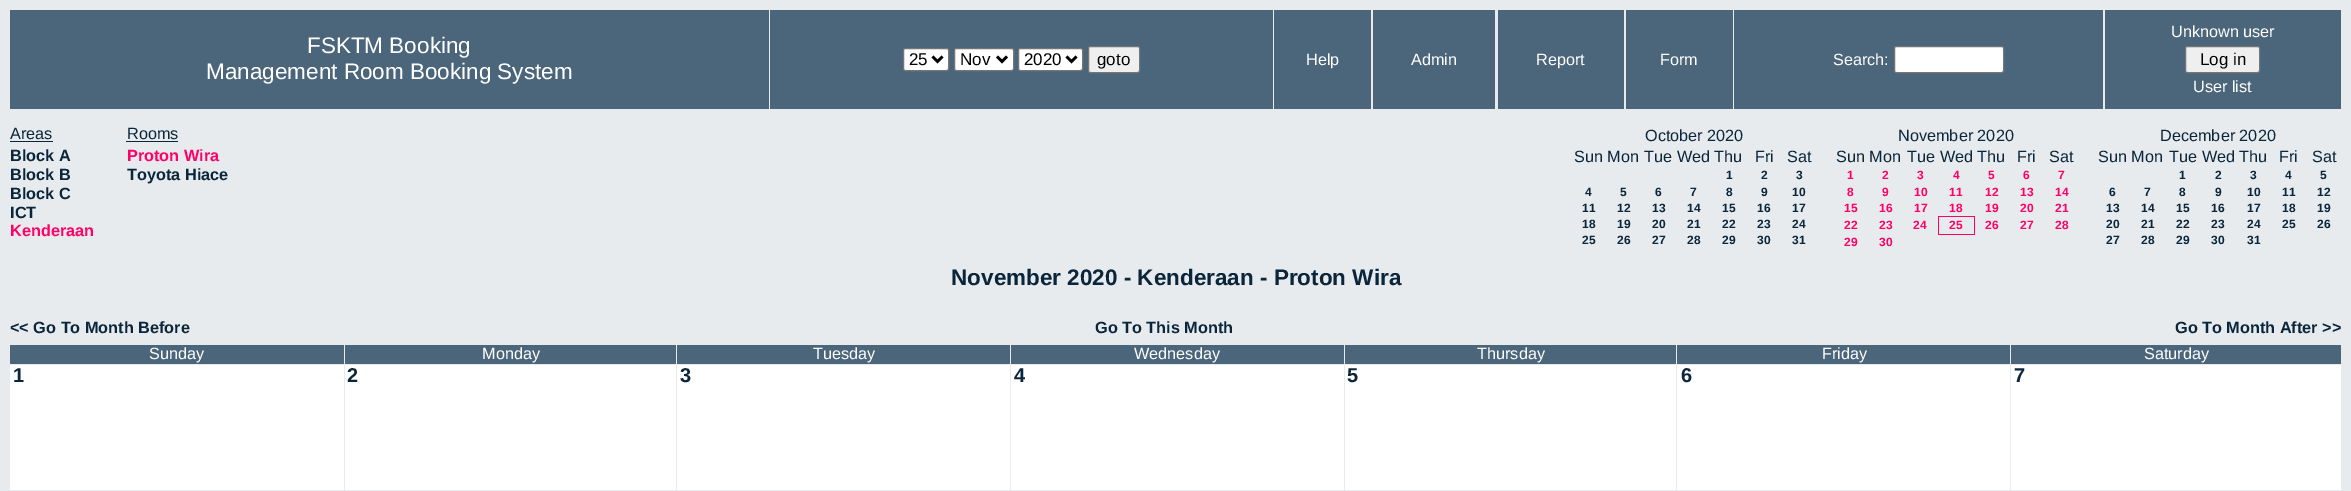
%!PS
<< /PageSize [2351 491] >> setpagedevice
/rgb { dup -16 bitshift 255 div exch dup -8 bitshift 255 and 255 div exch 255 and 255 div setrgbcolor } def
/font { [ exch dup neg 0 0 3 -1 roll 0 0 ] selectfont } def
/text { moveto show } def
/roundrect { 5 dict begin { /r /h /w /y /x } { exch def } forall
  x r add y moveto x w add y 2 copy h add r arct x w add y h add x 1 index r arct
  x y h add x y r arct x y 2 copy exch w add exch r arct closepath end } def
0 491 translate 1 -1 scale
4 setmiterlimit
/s1 { /LiberationSans-Regular 22.5 font 16#FFFFFF rgb } def
/s2 { /LiberationSans-Regular 17 font 16#000000 rgb } def
/s3 { /LiberationSans-Regular 16.25 font 16#FFFFFF rgb } def
/s4 { /LiberationSans-Regular 16.25 font 16#0B263B rgb } def
/s5 { /LiberationSans-Bold 16.25 font 16#0B263B rgb } def
/s6 { /LiberationSans-Bold 16.25 font 16#FF0066 rgb } def
/s7 { /LiberationSans-Bold 12 font 16#0B263B rgb } def
/s8 { /LiberationSans-Bold 12 font 16#FF0066 rgb } def
/s9 { /LiberationSans-Bold 22.5 font 16#0B263B rgb } def
/s10 { /LiberationSans-Bold 20 font 16#0B263B rgb } def
16#E7EBEE rgb
0 0 2351 491 rectfill
16#4B667B rgb
10 10 759 99 rectfill
s1
(FSKTM Booking) 307 53 text
(Management Room Booking System) 206 79 text
16#4B667B rgb
770 10 503 99 rectfill
16#FFFFFF rgb
903.5 48.5 45 22 2 roundrect gsave fill grestore
16#767676 rgb
stroke
16#000000 rgb
2.5 setlinewidth
932.5 56.5 moveto 937.5 61.5 lineto 942.5 56.5 lineto stroke
s2
(25) 909 65 text
16#FFFFFF rgb
954.5 48.5 59 22 2 roundrect gsave fill grestore
16#767676 rgb
1 setlinewidth
stroke
16#000000 rgb
2.5 setlinewidth
997 56.5 moveto 1002 61.5 lineto 1007 56.5 lineto stroke
(Nov) 960 65 text
16#FFFFFF rgb
1018.5 48.5 64 22 2 roundrect gsave fill grestore
16#767676 rgb
1 setlinewidth
stroke
16#000000 rgb
2.5 setlinewidth
1066.5 56.5 moveto 1071.5 61.5 lineto 1076.5 56.5 lineto stroke
(2020) 1024 65 text
16#EFEFEF rgb
1088.5 46.5 51 26 2 roundrect gsave fill grestore
16#767676 rgb
1 setlinewidth
stroke
s2
(goto) 1097 65 text
16#4B667B rgb
1274 10 97 99 rectfill
s3
(Help) 1306 65 text
16#4B667B rgb
1373 10 122 99 rectfill
s3
(Admin) 1411 65 text
16#4B667B rgb
1498 10 126 99 rectfill
s3
(Report) 1536 65 text
16#4B667B rgb
1626 10 107 99 rectfill
s3
(Form) 1660 65 text
16#4B667B rgb
1734 10 369 99 rectfill
s3
(Search:) 1833 65 text
1894.5 46.5 109 26 2 roundrect gsave fill grestore
16#767676 rgb
stroke
16#4B667B rgb
2105 10 236 99 rectfill
s3
(Unknown user) 2171 37 text
16#EFEFEF rgb
2185.5 46.5 74 26 2 roundrect gsave fill grestore
16#767676 rgb
stroke
s2
(Log in) 2200 65 text
s3
(User list) 2193 92 text
s4
(Areas) 10 139 text
10 141 43 1 rectfill
s5
(Block A) 10 161 text
(Block B) 10 180 text
(Block C) 10 199 text
(ICT) 10 218 text
s6
(Kenderaan) 10 236 text
s4
(Rooms) 127 139 text
126 141 52 1 rectfill
s6
(Proton Wira) 127 161 text
s5
(Toyota Hiace) 127 180 text
s4
(October 2020) 1645 141 text
(Sun Mon) 1574 162 text
(Tue Wed Thu) 1644 162 text
(Fri) 1755 162 text
(Sat) 1787 162 text
s7
(1) 1726 179 text
(2) 1761 179 text
(3) 1796 179 text
(4) 1585 196 text
(5) 1620 196 text
(6) 1655 196 text
(7) 1690 196 text
(8) 1726 196 text
(9) 1761 196 text
(10) 1792 196 text
(11) 1582 212 text
(12) 1617 212 text
(13) 1652 212 text
(14) 1687 212 text
(15) 1722 212 text
(16) 1757 212 text
(17) 1792 212 text
(18) 1582 228 text
(19) 1617 228 text
(20) 1652 228 text
(21) 1687 228 text
(22) 1722 228 text
(23) 1757 228 text
(24) 1792 228 text
(25) 1582 244 text
(26) 1617 244 text
(27) 1652 244 text
(28) 1687 244 text
(29) 1722 244 text
(30) 1757 244 text
(31) 1792 244 text
s4
(November 2020) 1898 141 text
(Sun Mon) 1836 162 text
(Tue Wed Thu) 1907 162 text
(Fri) 2017 162 text
(Sat) 2049 162 text
s8
(1) 1847 179 text
(2) 1882 179 text
(3) 1917 179 text
(4) 1953 179 text
(5) 1988 179 text
(6) 2023 179 text
(7) 2058 179 text
(8) 1847 196 text
(9) 1882 196 text
(10) 1914 196 text
(11) 1949 196 text
(12) 1985 196 text
(13) 2020 196 text
(14) 2055 196 text
(15) 1844 212 text
(16) 1879 212 text
(17) 1914 212 text
(18) 1949 212 text
(19) 1985 212 text
(20) 2020 212 text
(21) 2055 212 text
(22) 1844 229 text
(23) 1879 229 text
(24) 1913 229 text
1938 216 37 1 rectfill
1974 216 1 19 rectfill
1938 234 37 1 rectfill
1938 216 1 19 rectfill
(25) 1949 229 text
(26) 1985 229 text
(27) 2020 229 text
(28) 2055 229 text
(29) 1844 246 text
(30) 1879 246 text
s4
(December 2020) 2160 141 text
(Sun Mon) 2098 162 text
(Tue Wed Thu) 2169 162 text
(Fri) 2279 162 text
(Sat) 2312 162 text
s7
(1) 2179 179 text
(2) 2215 179 text
(3) 2250 179 text
(4) 2285 179 text
(5) 2320 179 text
(6) 2109 196 text
(7) 2144 196 text
(8) 2179 196 text
(9) 2215 196 text
(10) 2247 196 text
(11) 2282 196 text
(12) 2317 196 text
(13) 2106 212 text
(14) 2141 212 text
(15) 2176 212 text
(16) 2211 212 text
(17) 2247 212 text
(18) 2282 212 text
(19) 2317 212 text
(20) 2106 228 text
(21) 2141 228 text
(22) 2176 228 text
(23) 2211 228 text
(24) 2247 228 text
(25) 2282 228 text
(26) 2317 228 text
(27) 2106 244 text
(28) 2141 244 text
(29) 2176 244 text
(30) 2211 244 text
(31) 2247 244 text
s9
(November 2020 - Kenderaan - Proton Wira) 951 285 text
s5
(<< Go To Month Before) 10 333 text
(Go To This Month) 1095 333 text
(Go To Month After >>) 2175 333 text
16#4B667B rgb
10 345 334 19 rectfill
s3
(Sunday) 149 359 text
16#4B667B rgb
345 345 331 19 rectfill
s3
(Monday) 482 359 text
16#4B667B rgb
677 345 333 19 rectfill
s3
(Tuesday) 813 359 text
16#4B667B rgb
1011 345 333 19 rectfill
s3
(Wednesday) 1134 359 text
16#4B667B rgb
1345 345 331 19 rectfill
s3
(Thursday) 1477 359 text
16#4B667B rgb
1677 345 333 19 rectfill
s3
(Friday) 1822 359 text
16#4B667B rgb
2011 345 330 19 rectfill
s3
(Saturday) 2144 359 text
10 365 334 125 rectfill
s10
(1) 13 382 text
16#FFFFFF rgb
345 365 331 125 rectfill
s10
(2) 347 382 text
16#FFFFFF rgb
677 365 333 125 rectfill
s10
(3) 680 382 text
16#FFFFFF rgb
1011 365 333 125 rectfill
s10
(4) 1014 382 text
16#FFFFFF rgb
1345 365 331 125 rectfill
s10
(5) 1347 382 text
16#FFFFFF rgb
1677 365 333 125 rectfill
s10
(6) 1681 382 text
16#FFFFFF rgb
2011 365 330 125 rectfill
s10
(7) 2014 382 text
showpage
